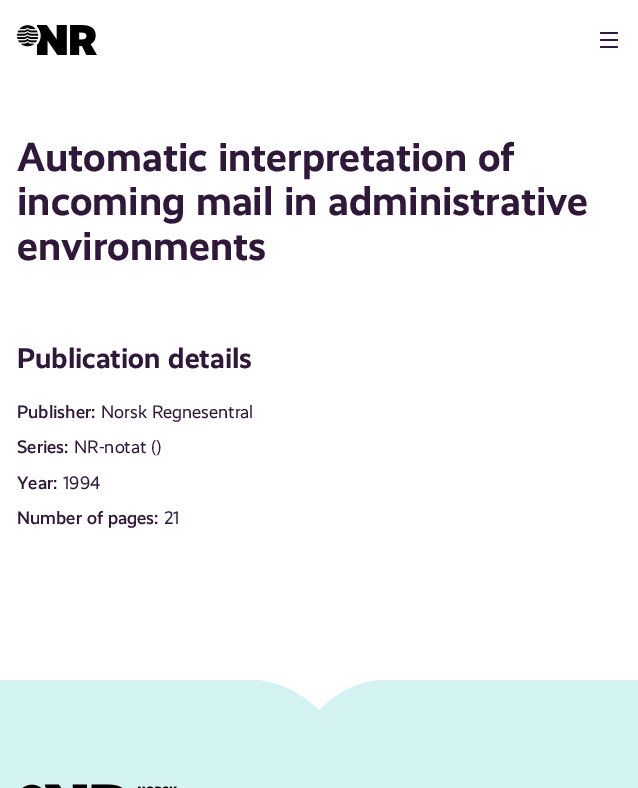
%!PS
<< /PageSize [638 788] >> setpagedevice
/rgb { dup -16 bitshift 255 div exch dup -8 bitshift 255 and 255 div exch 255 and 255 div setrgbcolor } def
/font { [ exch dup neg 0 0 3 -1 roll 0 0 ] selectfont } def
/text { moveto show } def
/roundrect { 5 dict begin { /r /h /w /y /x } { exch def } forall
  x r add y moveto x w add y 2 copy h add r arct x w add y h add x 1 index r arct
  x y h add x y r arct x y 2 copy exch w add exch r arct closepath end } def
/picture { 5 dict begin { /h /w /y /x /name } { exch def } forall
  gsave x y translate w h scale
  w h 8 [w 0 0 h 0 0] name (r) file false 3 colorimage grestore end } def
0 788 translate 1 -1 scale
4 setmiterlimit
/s1 { /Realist-Bold 40.75 font 16#30183A rgb } def
/s2 { /Realist-Bold 28.75 font 16#30183A rgb } def
/s3 { /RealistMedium-Medium 18.25 font 16#30183A rgb } def
/s4 { /Realist-Regular 18.25 font 16#30183A rgb } def
16#FFFFFF rgb
0 0 638 788 rectfill
(pic1.raw) 17 25 80 30 picture
16#30183A rgb
600 32 18 2 1 roundrect fill
600 39 18 2 1 roundrect fill
600 46 18 2 1 roundrect fill
s1
(Automatic interpretation of) 17 171 text
(incoming mail in administrative) 17 215 text
(environments) 17 260 text
s2
(Publication details) 17 368 text
s3
(Publisher:) 17 418 text
s4
(Norsk Regnesentral) 101 418 text
s3
(Series:) 17 453 text
s4
(NR-notat \(\)) 74 453 text
s3
(Year:) 17 489 text
s4
(1994) 63 489 text
s3
(Number of pages:) 17 524 text
s4
(21) 164 524 text
16#D2F3F1 rgb
0 680 638 108 rectfill
16#FFFFFF rgb
319 710 moveto 337 691 362 679 390 679 curveto 247 679 lineto 275 679 300 691 319 710 curveto closepath fill
(pic2.raw) 22 784 155 4 picture
showpage
